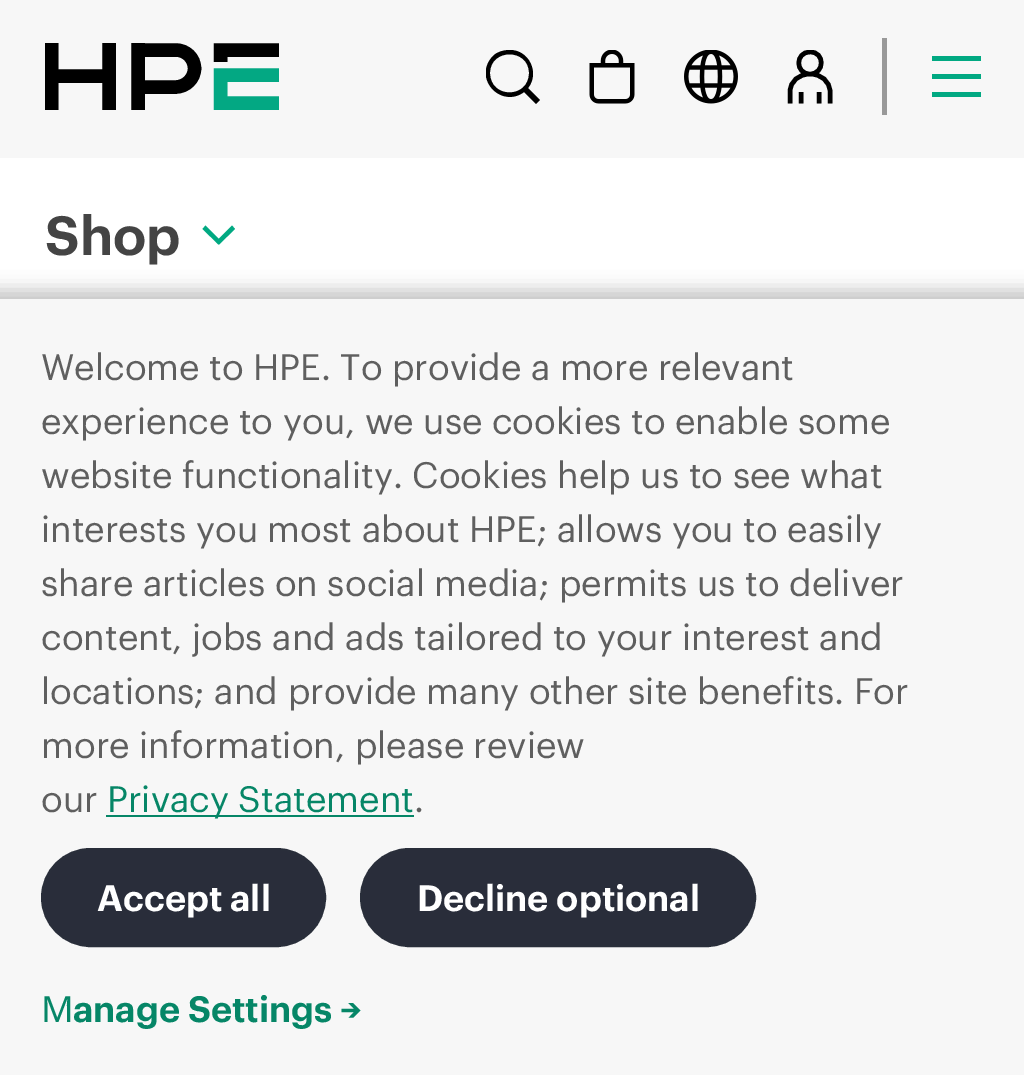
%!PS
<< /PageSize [1024 1075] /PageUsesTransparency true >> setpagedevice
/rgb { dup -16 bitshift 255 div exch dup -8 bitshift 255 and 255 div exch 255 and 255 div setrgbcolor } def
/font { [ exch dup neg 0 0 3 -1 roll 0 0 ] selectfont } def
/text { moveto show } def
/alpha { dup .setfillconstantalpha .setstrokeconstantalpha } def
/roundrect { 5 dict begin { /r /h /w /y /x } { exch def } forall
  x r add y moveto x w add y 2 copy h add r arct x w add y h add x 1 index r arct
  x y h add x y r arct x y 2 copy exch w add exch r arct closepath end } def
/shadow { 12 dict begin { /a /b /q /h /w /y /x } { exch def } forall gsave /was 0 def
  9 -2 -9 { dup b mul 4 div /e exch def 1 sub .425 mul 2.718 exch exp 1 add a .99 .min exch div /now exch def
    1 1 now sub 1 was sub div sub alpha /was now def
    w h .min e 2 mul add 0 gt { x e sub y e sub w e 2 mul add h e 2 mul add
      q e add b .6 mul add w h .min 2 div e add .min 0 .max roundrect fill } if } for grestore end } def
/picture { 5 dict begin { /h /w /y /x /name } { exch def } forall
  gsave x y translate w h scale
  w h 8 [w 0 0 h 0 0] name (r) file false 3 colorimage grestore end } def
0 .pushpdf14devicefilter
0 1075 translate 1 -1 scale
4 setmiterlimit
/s1 { /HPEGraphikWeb-SemiBold 54 font 16#444444 rgb } def
/s2 { /HPEGraphikWeb-Regular 36 font 16#5F5F5F rgb } def
/s3 { /HPEGraphikWeb-Regular 36 font 16#068667 rgb } def
/s4 { /HPEGraphikWeb-SemiBold 36 font 16#FFFFFF rgb } def
/s5 { /NotoSans-Regular 36 font 16#068667 rgb } def
/s6 { /HPEGraphikWeb-SemiBold 36 font 16#068667 rgb } def
16#FFFFFF rgb
0 0 1024 1075 rectfill
16#F7F7F7 rgb
0 0 1024 158 rectfill
gsave
45 43 234 67 rectclip
16#000000 rgb
13.4 setlinewidth
51.5 110 moveto 51.5 43 lineto 109 110 moveto 109 43 lineto 51.5 76 moveto 102.5 76 lineto 138 110 moveto 138 43 lineto 138 50 moveto 175.5 50 lineto 186 50 194.5 58 194.5 68.5 curveto 194.5 78.5 186 87 175.5 87 curveto 138 87 lineto 220.5 62 moveto 220.5 50 lineto 279 50 lineto stroke
grestore
16#03A883 rgb
13.4 setlinewidth
279 103 moveto 220.5 103 lineto 220.5 75 lineto 279 75 lineto stroke
gsave
486 50 54 54 rectclip
16#000000 rgb
510 50 moveto 503 50 497 52 493 56 curveto 472 78 501 109 524 92 curveto 536 104 lineto 540 100 lineto 528 88 lineto 540 73 529 50 510 50 curveto closepath 490 73 moveto 490 48 529 48 529 73 curveto 529 99 490 99 490 73 curveto closepath eofill
grestore
(pic1.raw) 589 50 46 54 picture
(pic2.raw) 684 50 54 54 picture
gsave
783 50 54 54 rectclip
16#000000 rgb
4.5 setlinewidth
801 103.5 moveto 801 92 lineto 819 103.5 moveto 819 92 lineto 790 103.5 moveto 790 92 lineto 790 81 799 74 810 74 curveto 821 74 830 81 830 92 curveto 830 103.5 lineto 810 74 moveto 825 74 825 51.5 810 52 curveto 795 52 795 74 810 74 curveto closepath stroke
grestore
16#999999 rgb
882 38 5 77 rectfill
16#01A982 rgb
932 74 49 5 rectfill
932 56 49 5 rectfill
932 92 49 5 rectfill
s1
(Shop) 45 255 text
16#01A982 rgb
221.5 241.5 moveto 218.5 244.5 lineto 202.5 229 lineto 205.5 225.5 lineto closepath fill
232 225.5 moveto 235 229 lineto 219 244.5 lineto 216 241.5 lineto closepath fill
16#000000 rgb
-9 290 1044 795 0 9 0.23 shadow
16#F7F7F7 rgb
0 299 1024 776 rectfill
s2
(Welcome to HPE. To provide a more relevant) 41 380 text
(experience to you, we use cookies to enable some) 41 434 text
(website functionality. Cookies help us to see what) 41 488 text
(interests you most about HPE; allows you to easily) 41 542 text
(share articles on social media; permits us to deliver) 41 596 text
(content, jobs and ads tailored to your interest and) 41 650 text
(locations; and provide many other site benefits. For) 41 704 text
(more information, please review) 41 758 text
(our) 41 812 text
16#068667 rgb
106 815 308 2 rectfill
(Privacy Statement) 107 812 text
s2
(.) 414 812 text
16#292D3A rgb
42 849 283 97 48.5 roundrect gsave fill grestore
16#292E3A rgb
2 setlinewidth
stroke
s4
(Accept all) 97 911 text
16#292D3A rgb
361 849 394 97 48.5 roundrect gsave fill grestore
16#292E3A rgb
stroke
s4
(Decline optional) 417 911 text
s5
(M) 41 1022 text
s6
(anage Settings →) 73 1022 text
.poppdf14devicefilter showpage
